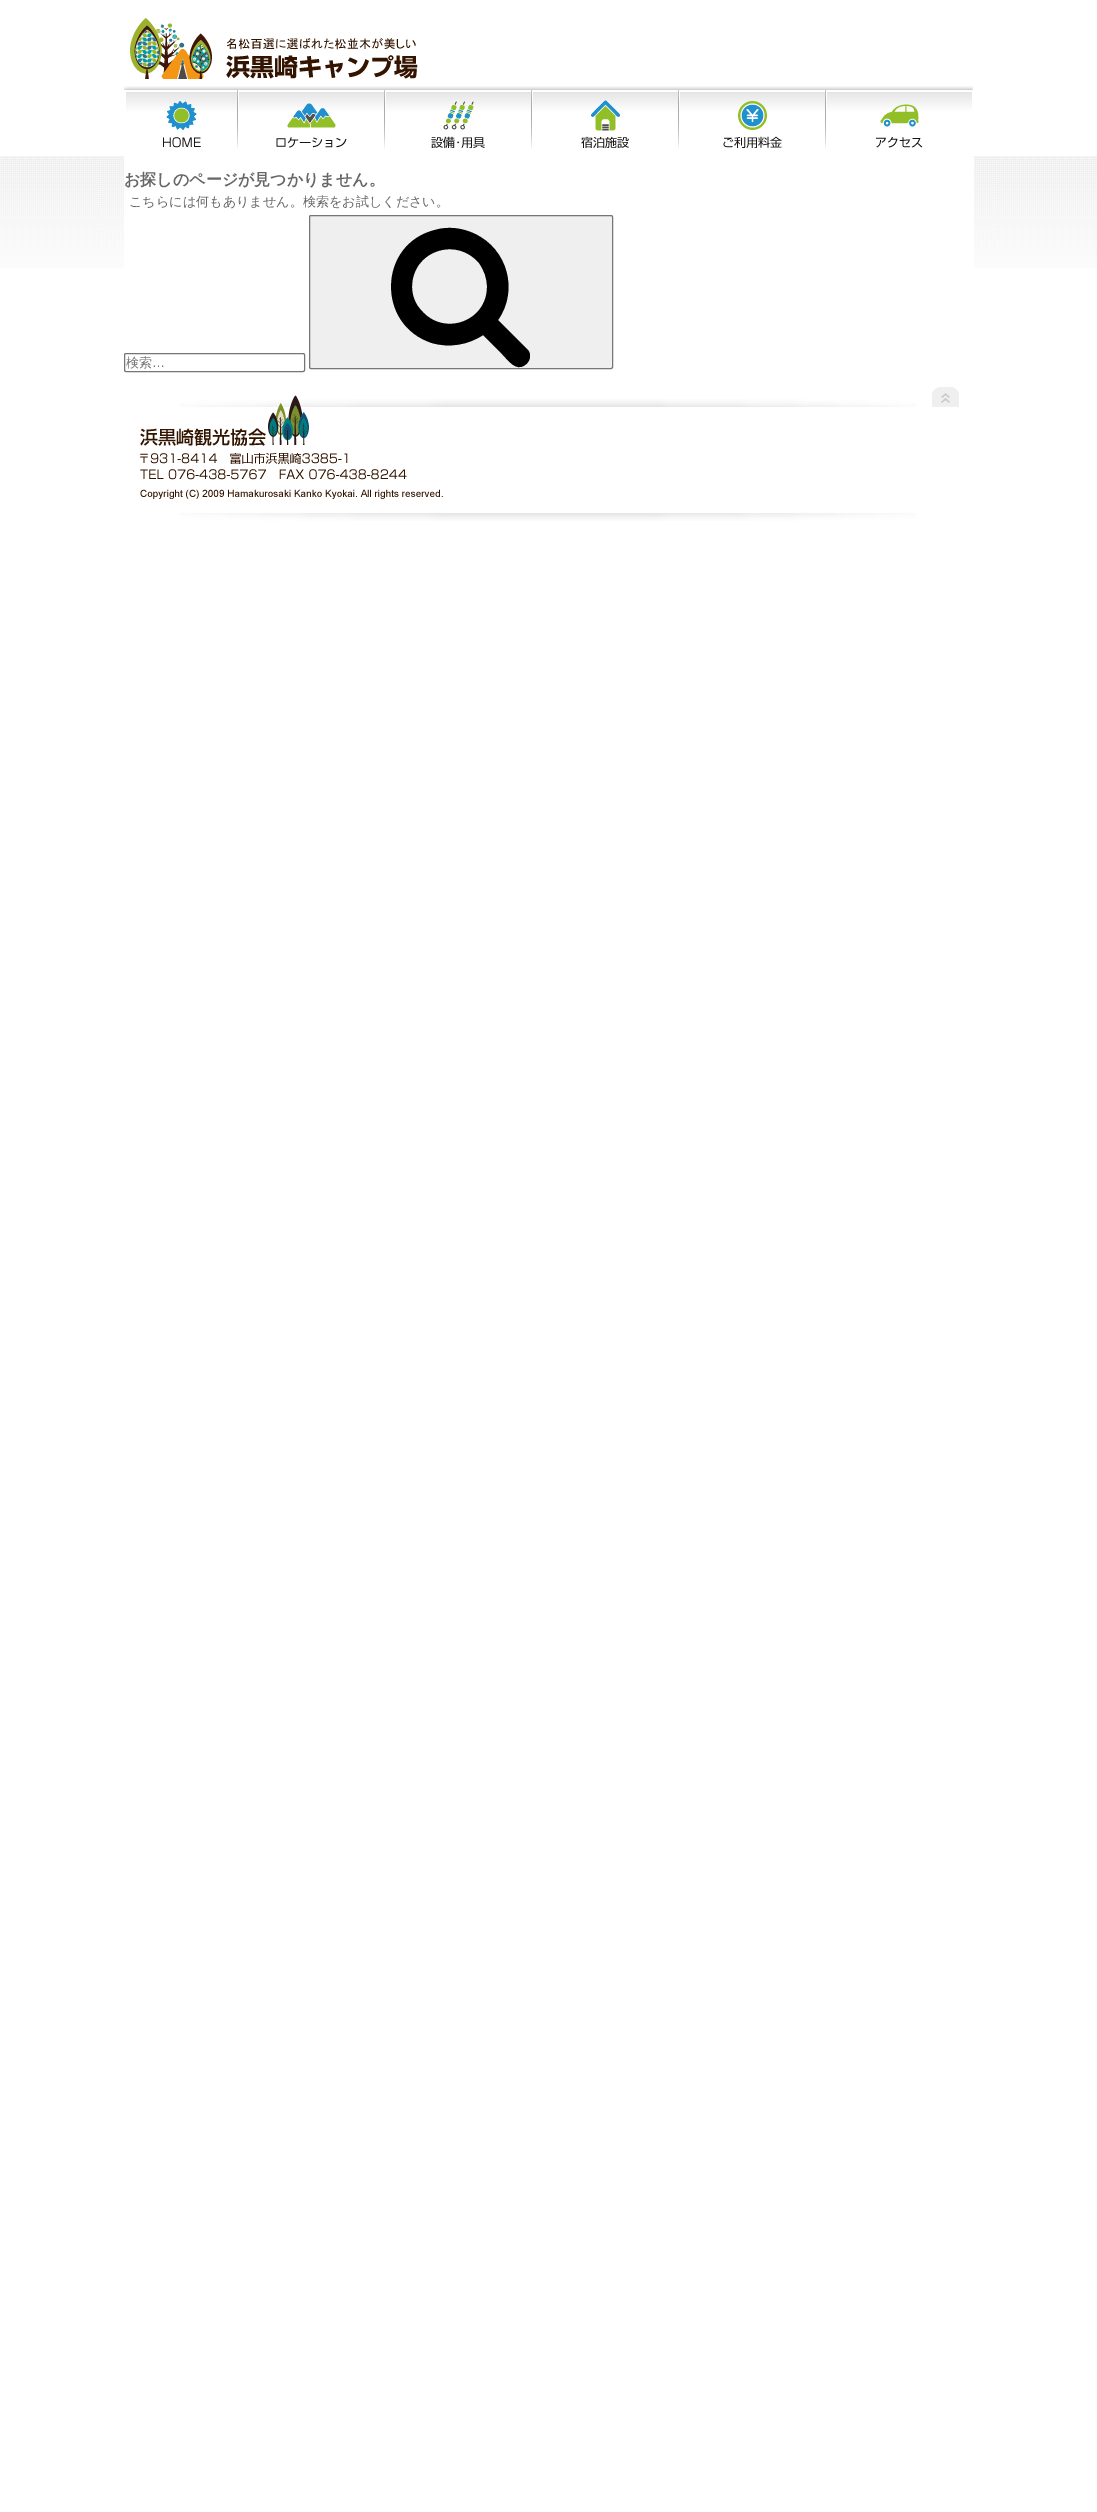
%!PS
<< /PageSize [1097 2512] >> setpagedevice
/rgb { dup -16 bitshift 255 div exch dup -8 bitshift 255 and 255 div exch 255 and 255 div setrgbcolor } def
/font { [ exch dup neg 0 0 3 -1 roll 0 0 ] selectfont } def
/text { moveto show } def
/roundrect { 5 dict begin { /r /h /w /y /x } { exch def } forall
  x r add y moveto x w add y 2 copy h add r arct x w add y h add x 1 index r arct
  x y h add x y r arct x y 2 copy exch w add exch r arct closepath end } def
/picture { 5 dict begin { /h /w /y /x /name } { exch def } forall
  gsave x y translate w h scale
  w h 8 [w 0 0 h 0 0] name (r) file false 3 colorimage grestore end } def
0 2512 translate 1 -1 scale
4 setmiterlimit
/s1 { /WenQuanYiZenHei-Bold 16 font 16#666666 rgb } def
/s2 { /WenQuanYiZenHei-Medium 13.1 font 16#666666 rgb } def
/s3 { /WenQuanYiZenHei-Medium 13 font 16#757575 rgb } def
/s4 { /LiberationSans-Regular 13 font 16#757575 rgb } def
16#FFFFFF rgb
0 0 1097 2512 rectfill
(pic1.raw) 0 156 1097 112 picture
(pic2.raw) 130 18 288 61 picture
(pic3.raw) 124 86 114 71 picture
(pic4.raw) 238 86 147 71 picture
(pic5.raw) 385 86 147 71 picture
(pic6.raw) 532 86 147 71 picture
(pic7.raw) 679 86 147 71 picture
(pic8.raw) 826 86 147 71 picture
124 157 850 111 rectfill
s1
(お探しのページが見つかりません。) 124 185 text
s2
(こちらには何もありません。検索をお試しください。) 129 206 text
16#767676 rgb
124.5 353.5 180 18 1.5 roundrect stroke
s3
(検索) 126 367 text
s4
(…) 152 367 text
16#EFEFEF rgb
309.5 215.5 303 153 1.5 roundrect gsave fill grestore
16#767676 rgb
stroke
16#000000 rgb
487 287 moveto 487 278 484 270 479 263 curveto 456 236 412 251 412 287 curveto 412 295 415 304 421 310 curveto 443 337 487 322 487 287 curveto closepath 530 356 moveto 530 360 528 363 525 365 curveto 516 372 508 360 502 354 curveto 483 335 lineto 468 345 449 348 432 343 curveto 376 325 378 244 435 230 curveto 448 226 463 228 475 234 curveto 507 249 519 290 498 320 curveto 527 349 lineto 529 351 530 353 530 356 curveto closepath fill
(pic9.raw) 180 399 736 122 picture
(pic10.raw) 140 395 303 104 picture
(pic11.raw) 932 387 27 20 picture
showpage
